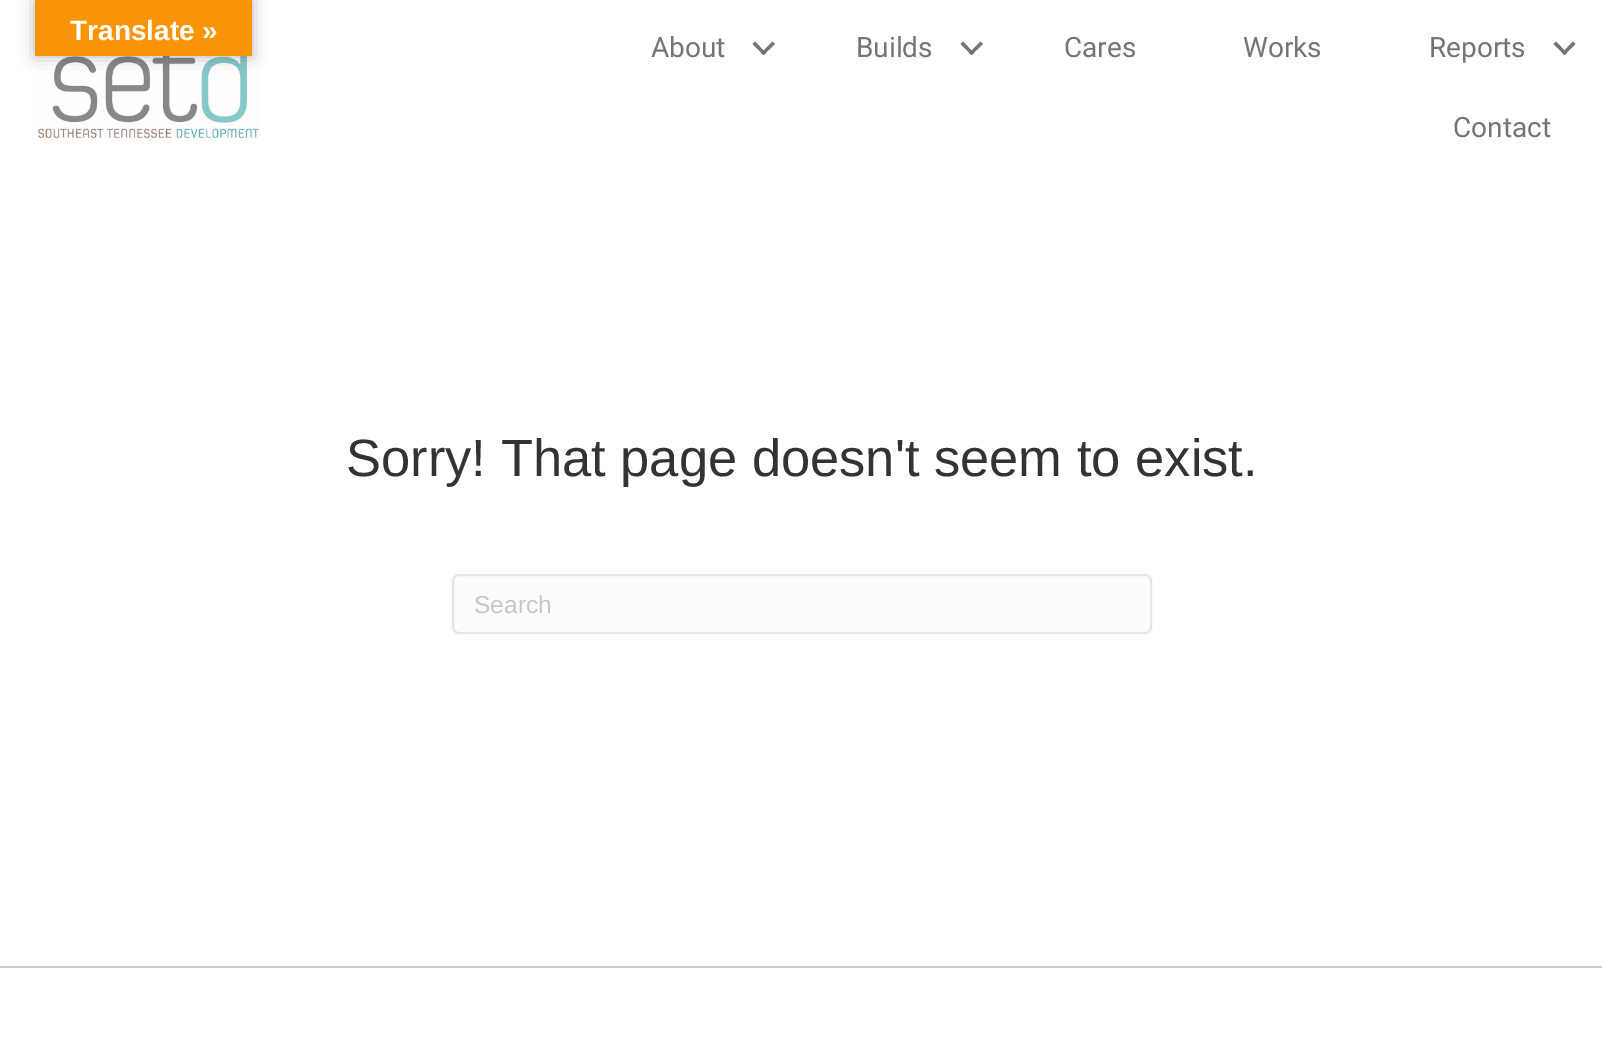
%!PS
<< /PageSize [1602 1044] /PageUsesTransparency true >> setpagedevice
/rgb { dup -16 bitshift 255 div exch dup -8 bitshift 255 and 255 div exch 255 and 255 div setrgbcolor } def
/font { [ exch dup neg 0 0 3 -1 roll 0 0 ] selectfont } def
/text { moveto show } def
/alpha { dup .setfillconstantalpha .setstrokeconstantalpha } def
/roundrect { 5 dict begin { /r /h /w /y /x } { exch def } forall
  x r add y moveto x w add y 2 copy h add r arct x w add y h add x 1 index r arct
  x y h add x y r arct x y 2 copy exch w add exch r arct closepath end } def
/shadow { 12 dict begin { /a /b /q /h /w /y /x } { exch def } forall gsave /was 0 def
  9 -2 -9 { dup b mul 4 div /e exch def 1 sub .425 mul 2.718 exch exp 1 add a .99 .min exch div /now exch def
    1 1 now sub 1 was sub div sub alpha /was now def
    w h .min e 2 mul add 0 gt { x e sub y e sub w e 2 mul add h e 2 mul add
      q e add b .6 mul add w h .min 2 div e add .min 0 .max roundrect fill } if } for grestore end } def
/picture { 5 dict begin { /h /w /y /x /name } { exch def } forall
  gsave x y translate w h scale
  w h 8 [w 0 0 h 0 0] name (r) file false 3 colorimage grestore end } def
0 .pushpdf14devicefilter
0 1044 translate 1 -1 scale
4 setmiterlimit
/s1 { /LiberationSans-Bold 28 font 16#FFFFFF rgb } def
/s2 { /Roboto-Regular 28 font 16#757575 rgb } def
/s3 { /LiberationSans-Regular 52.5 font 16#333333 rgb } def
/s4 { /LiberationSans-Regular 24.5 font 16#C6C6C6 rgb } def
16#FFFFFF rgb
0 0 1602 1044 rectfill
(pic1.raw) 38 37 222 103 picture
16#000000 rgb
35 0 217 56 0 8 0.3 shadow
16#F89406 rgb
35 0 217 56 rectfill
s1
(Translate ») 70 40 text
s2
(About) 651 57 text
772.5 41.5 moveto 775 44 lineto 763.5 55 lineto 761 53 lineto closepath fill
755 41.5 moveto 766 53 lineto 763.5 55 lineto 752.5 44 lineto closepath fill
(Builds) 856 57 text
980.5 41.5 moveto 983 44 lineto 971.5 55 lineto 969 53 lineto closepath fill
963 41.5 moveto 974 53 lineto 971.5 55 lineto 960.5 44 lineto closepath fill
(Cares) 1064 57 text
(Works) 1243 57 text
(Reports) 1429 57 text
1573 41.5 moveto 1575.5 44 lineto 1564.5 55 lineto 1562 53 lineto closepath fill
1556 41.5 moveto 1567 53 lineto 1564.5 55 lineto 1553.5 44 lineto closepath fill
(Contact) 1453 137 text
s3
(Sorry! That page doesn't seem to exist.) 346 476 text
16#FCFCFC rgb
453 575 698 58 6 roundrect gsave fill grestore
16#E6E6E6 rgb
2 setlinewidth
stroke
s4
(Search) 474 613 text
16#CCCCCC rgb
0 966 1602 2 rectfill
.poppdf14devicefilter showpage
